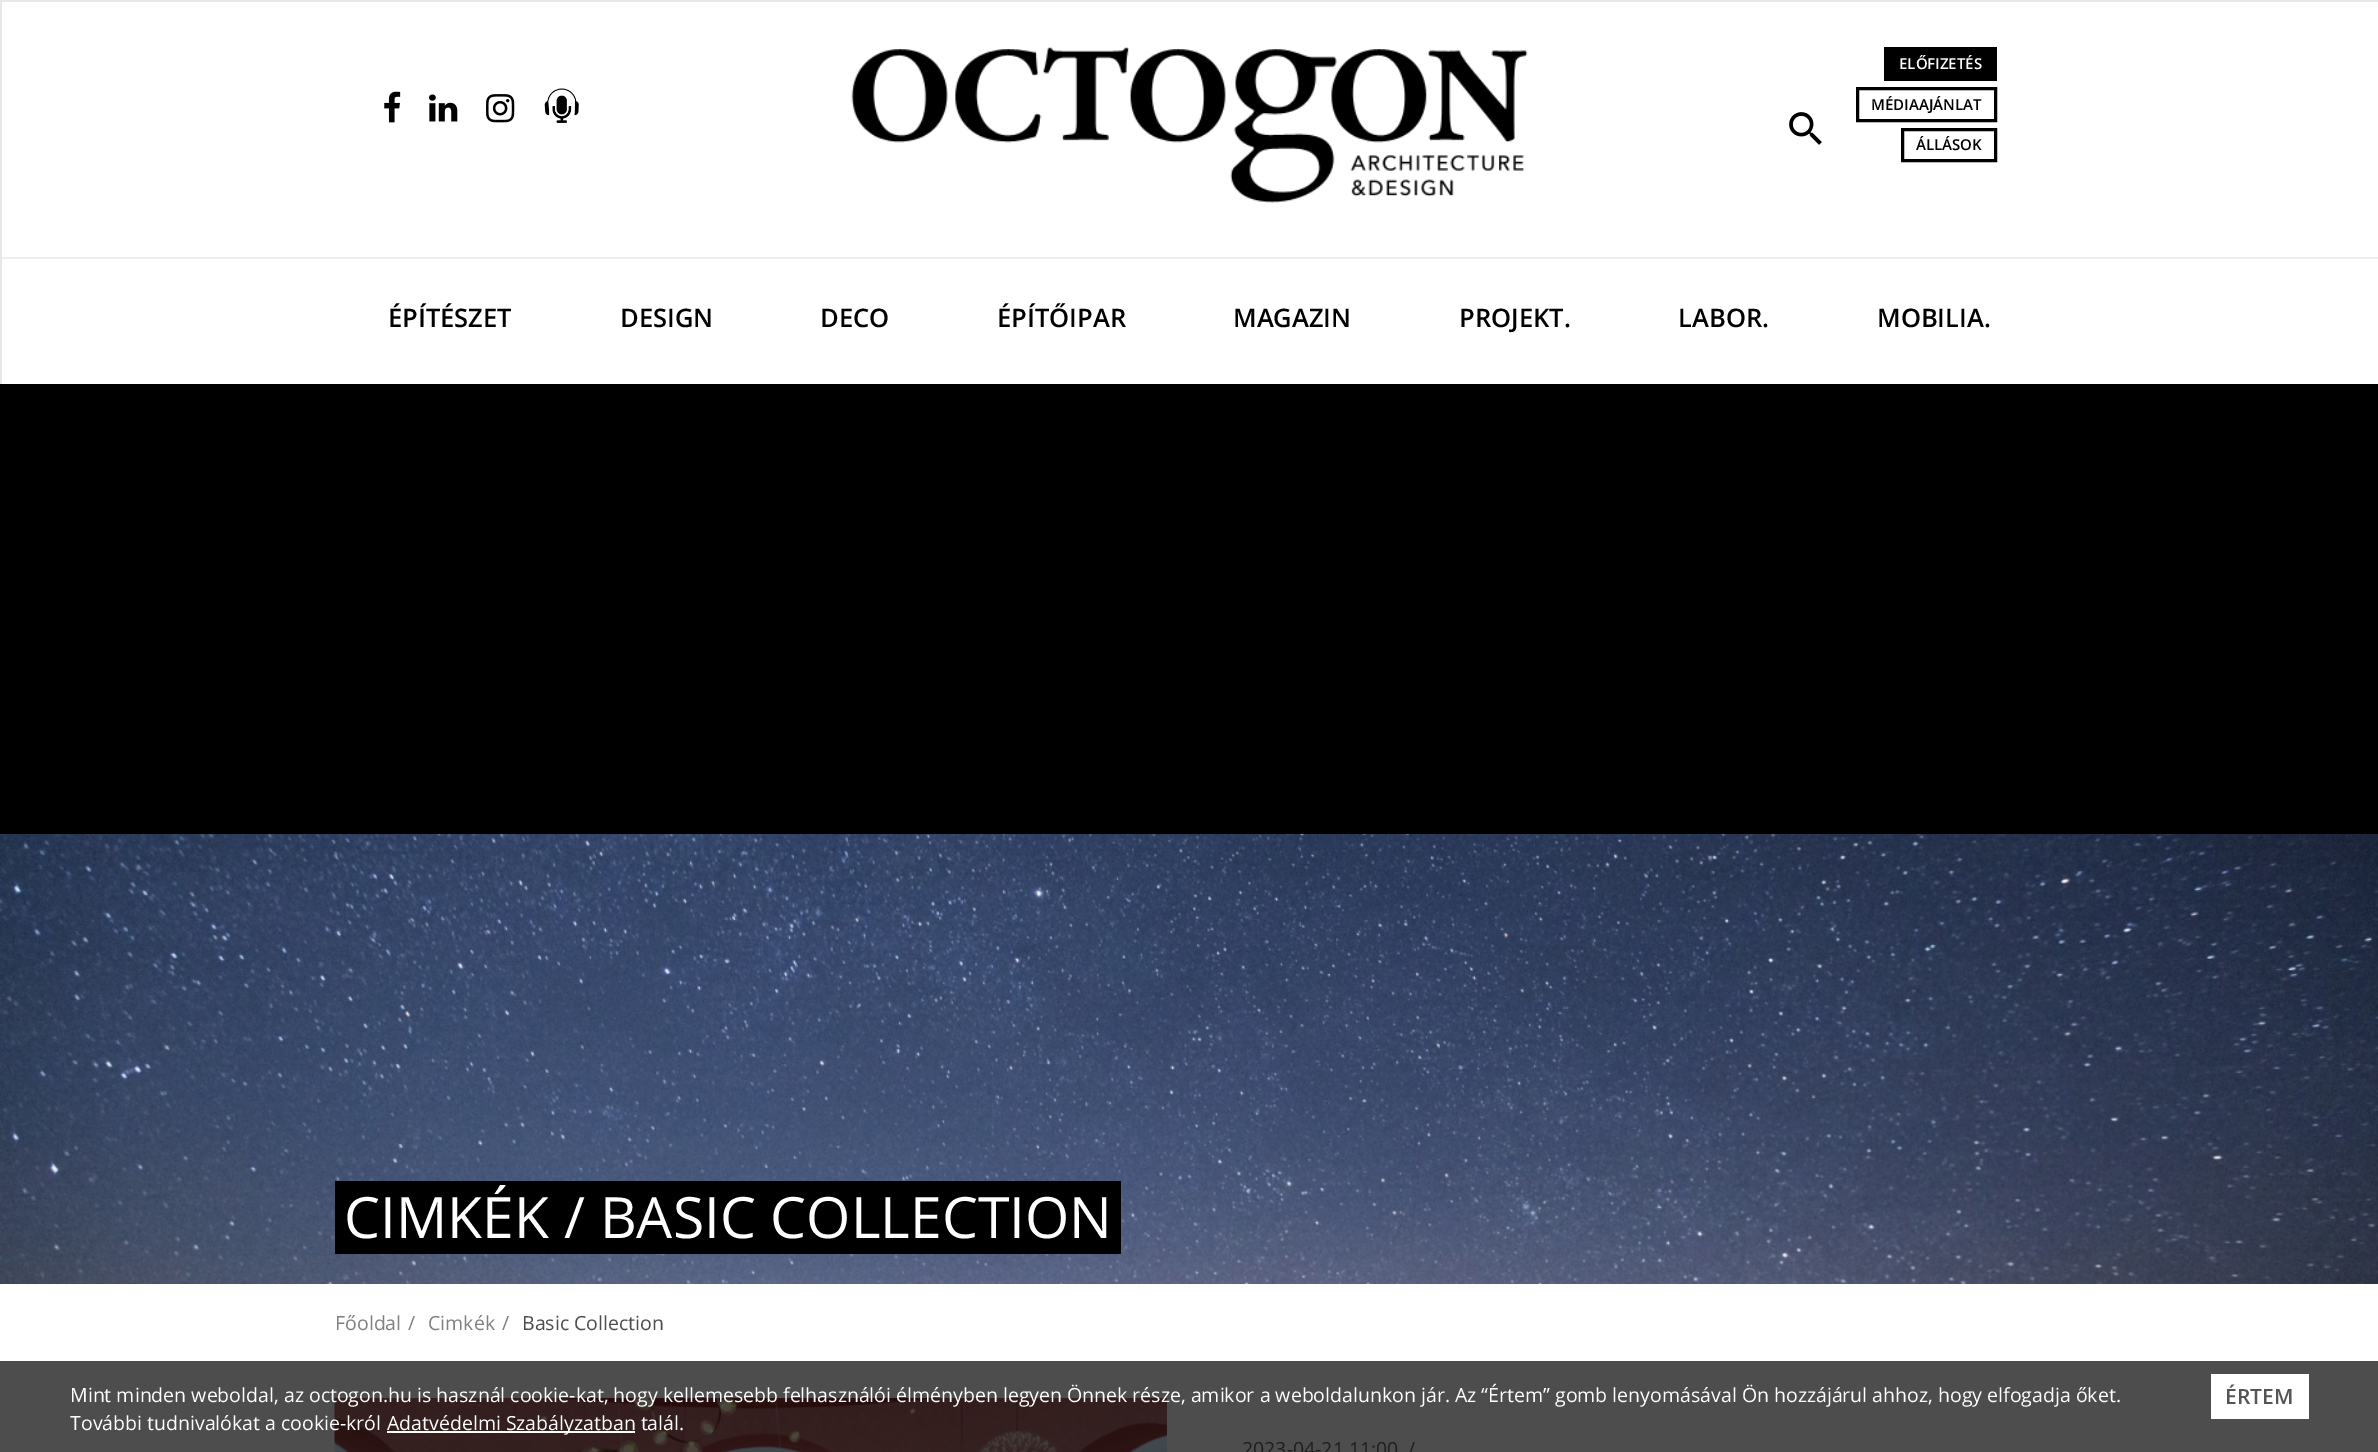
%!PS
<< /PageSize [2378 1452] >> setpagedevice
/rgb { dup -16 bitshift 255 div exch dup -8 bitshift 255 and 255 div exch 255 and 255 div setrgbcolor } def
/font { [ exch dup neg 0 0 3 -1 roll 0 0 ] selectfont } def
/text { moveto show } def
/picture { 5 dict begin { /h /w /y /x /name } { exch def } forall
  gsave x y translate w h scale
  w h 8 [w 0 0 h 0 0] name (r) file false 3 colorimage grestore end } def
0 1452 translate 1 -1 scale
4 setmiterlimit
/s1 { /OpenSans-SemiBold 15 font 16#FFFFFF rgb } def
/s2 { /OpenSans-SemiBold 15 font 16#000000 rgb } def
/s3 { /OpenSans-SemiBold 25.5 font 16#000000 rgb } def
/s4 { /OpenSans-Regular 57 font 16#FFFFFF rgb } def
/s5 { /OpenSans-Regular 19.5 font 16#808080 rgb } def
/s6 { /OpenSans-Regular 19.5 font 16#4D4D4D rgb } def
/s7 { /OpenSans-Regular 19.5 font 16#FFFFFF rgb } def
/s8 { /OpenSans-SemiBold 21 font 16#555555 rgb } def
/s9 { /OpenSans-Regular 19.5 font 16#1F1F1F rgb } def
16#000000 rgb
0 0 2378 1452 rectfill
16#FFFFFF rgb
2 2 2376 382 rectfill
16#E7E7E7 rgb
0 0 2378 2 rectfill
0 0 2 384 rectfill
16#EDEDED rgb
2 257 2376 2 rectfill
(pic1.raw) 384 91 17 32 picture
(pic2.raw) 429 94 29 28 picture
(pic3.raw) 486 94 29 29 picture
(pic4.raw) 544 88 35 35 picture
(pic5.raw) 851 47 677 156 picture
(pic6.raw) 1789 112 33 33 picture
16#000000 rgb
1884 47 113 34 rectfill
s1
(ELŐFIZETÉS) 1899 69 text
16#000000 rgb
3 setlinewidth
1857.5 88.5 138 32 rectstroke
(MÉDIAAJÁNLAT) 1871 110 text
1902.5 129.5 93 31 rectstroke
(ÁLLÁSOK) 1916 150 text
s3
(ÉPÍTÉSZET) 388 327 text
(DESIGN) 620 327 text
(DECO) 820 327 text
(ÉPÍTŐIPAR) 997 327 text
(MAGAZIN) 1233 327 text
(PROJEKT.) 1459 327 text
(LABOR.) 1678 327 text
(MOBILIA.) 1877 327 text
(pic7.raw) 0 834 2378 450 picture
335 1181 786 73 rectfill
s4
(CIMKÉK / BASIC COLLECTION) 344 1238 text
0 1284 2378 77 rectfill
s5
(Főoldal) 335 1330 text
(/) 408 1330 text
(Cimkék) 428 1330 text
(/) 502 1330 text
s6
(Basic Collection) 522 1330 text
0 1361 2378 91 rectfill
(pic8.raw) 334 1398 833 54 picture
s7
(Mint minden weboldal, az octogon.hu is használ cookie-kat, hogy kellemesebb felhasználói élményben legyen Önnek része, amikor a weboldalunkon jár. Az “Értem” gomb lenyomásával Ön hozzájárul ahhoz, hogy elfogadja őket.) 70 1402 text
(További tudnivalókat a cookie-król) 70 1430 text
387 1431 248 2 rectfill
(Adatvédelmi Szabályzatban talál.) 387 1430 text
2211 1374 98 45 rectfill
s8
(ÉRTEM) 2225 1404 text
s9
(2023-04-21 11:00) 1242 1456 text
(/) 1408 1456 text
showpage
